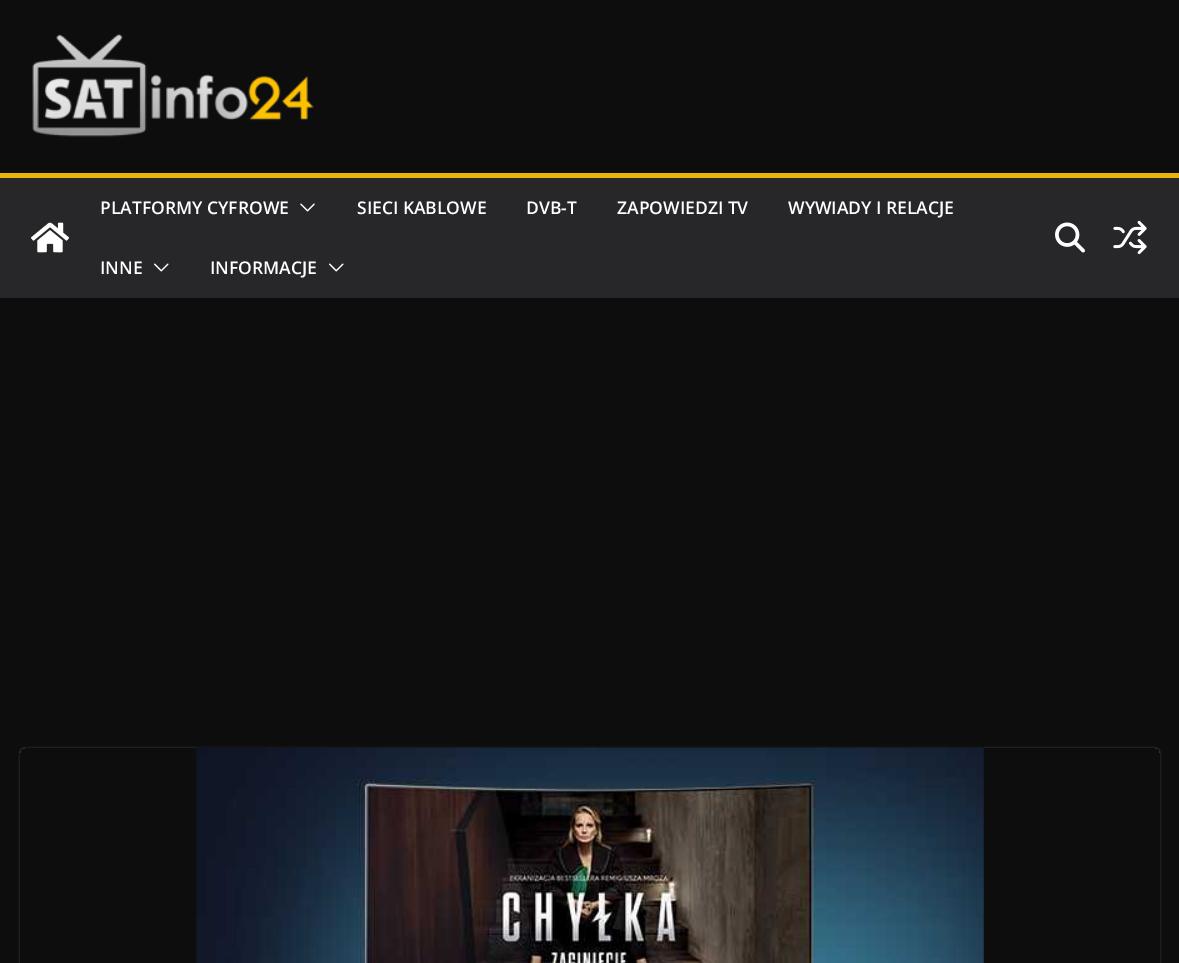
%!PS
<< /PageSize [1179 963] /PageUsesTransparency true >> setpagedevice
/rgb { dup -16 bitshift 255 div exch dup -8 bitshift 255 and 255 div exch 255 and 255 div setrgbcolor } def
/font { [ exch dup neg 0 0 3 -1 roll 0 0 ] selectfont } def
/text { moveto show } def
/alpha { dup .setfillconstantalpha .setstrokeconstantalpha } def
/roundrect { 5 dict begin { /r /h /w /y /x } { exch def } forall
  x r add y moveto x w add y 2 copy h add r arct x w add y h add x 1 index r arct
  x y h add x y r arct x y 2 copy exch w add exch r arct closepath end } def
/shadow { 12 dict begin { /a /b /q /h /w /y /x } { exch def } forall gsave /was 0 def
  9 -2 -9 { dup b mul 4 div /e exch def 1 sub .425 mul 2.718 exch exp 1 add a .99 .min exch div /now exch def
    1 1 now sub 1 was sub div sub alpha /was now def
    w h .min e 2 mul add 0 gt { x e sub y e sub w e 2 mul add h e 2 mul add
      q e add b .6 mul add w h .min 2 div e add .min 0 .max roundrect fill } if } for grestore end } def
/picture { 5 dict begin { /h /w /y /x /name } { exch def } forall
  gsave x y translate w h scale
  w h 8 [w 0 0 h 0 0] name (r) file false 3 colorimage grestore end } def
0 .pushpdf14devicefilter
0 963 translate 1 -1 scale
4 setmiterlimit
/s1 { /OpenSans-SemiBold 17.5 font 16#FFFFFF rgb } def
16#0D0D0D rgb
0 0 1179 963 rectfill
(pic1.raw) 32 33 282 104 picture
16#27272A rgb
0 178 1179 120 rectfill
16#EAB30C rgb
0 173 1179 5 rectfill
(pic2.raw) 31 222 38 31 picture
s1
(PLATFORMY CYFROWE) 100 214 text
(pic3.raw) 300 203 15 9 picture
(SIECI KABLOWE) 357 214 text
(DVB-T) 526 214 text
(ZAPOWIEDZI TV) 617 214 text
(WYWIADY I RELACJE) 788 214 text
(INNE) 100 274 text
(pic4.raw) 154 263 15 9 picture
(INFORMACJE) 210 274 text
(pic4.raw) 329 263 15 9 picture
(pic5.raw) 1055 222 30 31 picture
(pic6.raw) 1113 220 34 35 picture
gsave
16 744 moveto 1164 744 lineto 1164 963 lineto 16 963 lineto closepath 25 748 moveto 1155 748 lineto 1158 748 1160 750 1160 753 curveto 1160 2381 lineto 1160 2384 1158 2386 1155 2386 curveto 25 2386 lineto 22 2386 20 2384 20 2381 curveto 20 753 lineto 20 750 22 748 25 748 curveto closepath eoclip newpath
20 748 1140 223 5 1 0.24 shadow
grestore
(pic7.raw) 196 747 788 216 picture
.poppdf14devicefilter showpage
